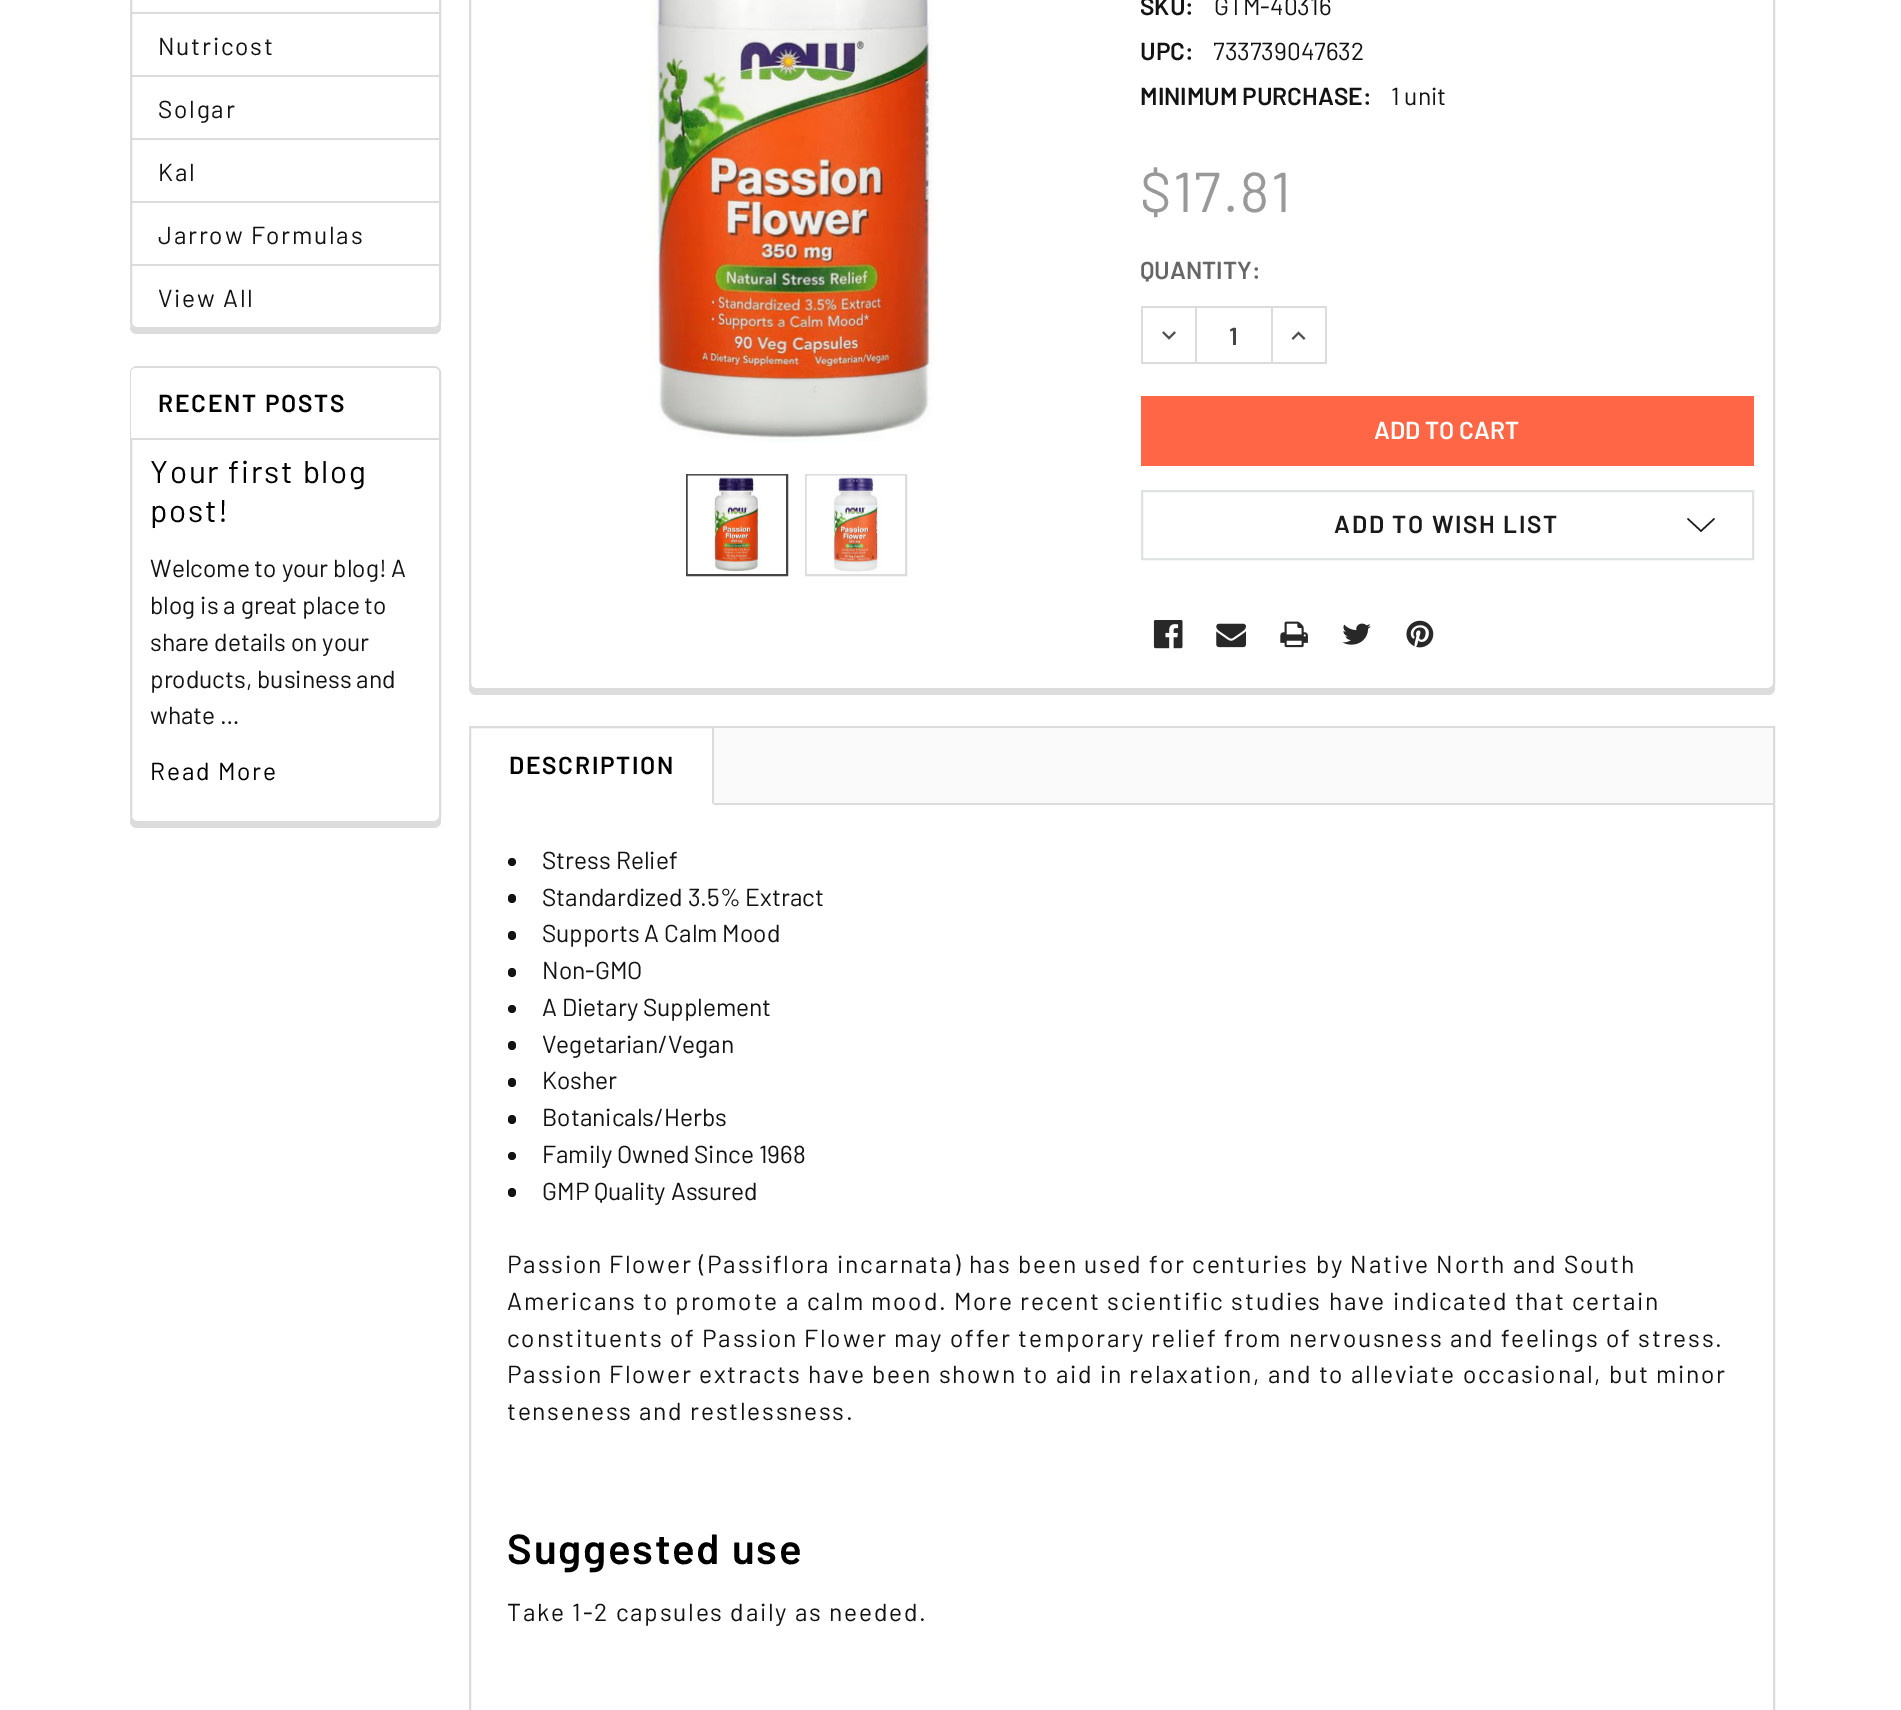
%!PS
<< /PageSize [1901 1710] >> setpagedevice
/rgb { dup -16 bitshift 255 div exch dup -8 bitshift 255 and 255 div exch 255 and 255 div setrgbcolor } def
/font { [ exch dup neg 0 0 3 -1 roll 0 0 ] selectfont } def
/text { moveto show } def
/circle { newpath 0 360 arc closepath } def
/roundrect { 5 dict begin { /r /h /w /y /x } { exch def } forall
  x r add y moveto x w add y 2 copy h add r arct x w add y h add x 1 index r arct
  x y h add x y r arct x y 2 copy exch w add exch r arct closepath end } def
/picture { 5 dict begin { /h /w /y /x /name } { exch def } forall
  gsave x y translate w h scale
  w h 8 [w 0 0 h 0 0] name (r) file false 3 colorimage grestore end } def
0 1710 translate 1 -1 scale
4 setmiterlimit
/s1 { /Barlow-Regular 24.5 font 16#131313 rgb } def
/s2 { /Barlow-SemiBold 24.5 font 16#131313 rgb } def
/s3 { /Barlow-SemiBold 24.5 font 16#666666 rgb } def
/s4 { /Barlow-SemiBold 24.5 font 16#454545 rgb } def
/s5 { /Barlow-SemiBold 24.5 font 16#FFFFFF rgb } def
16#FFFFFF rgb
0 0 1901 1710 rectfill
16#DCDCDC rgb
130 325 moveto 130 327 lineto 130 331 133 334 137 334 curveto 434 334 lineto 438 334 441 331 441 327 curveto 441 322 lineto 441 326 438 329 434 329 curveto 136 329 lineto 134 329 131 327 130 325 curveto closepath fill
16#FFFFFF rgb
131 -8 309 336 6 roundrect gsave fill grestore
16#DCDCDC rgb
2 setlinewidth
stroke
131 12 308 2 rectfill
/Barlow-Regular 24.5 font
16#131313 rgb
158 55 moveto 1.75 0 (Nutricost) ashow
16#DCDCDC rgb
131 75 308 2 rectfill
16#131313 rgb
158 118 moveto 1.75 0 (Solgar) ashow
16#DCDCDC rgb
131 138 308 2 rectfill
16#131313 rgb
158 181 moveto 1.75 0 (Kal) ashow
16#DCDCDC rgb
131 201 308 2 rectfill
16#131313 rgb
158 244 moveto 1.75 0 (Jarrow Formulas) ashow
16#DCDCDC rgb
131 264 308 2 rectfill
16#131313 rgb
158 307 moveto 1.75 0 (View All) ashow
16#DCDCDC rgb
130 818 moveto 130 821 lineto 130 825 133 828 137 828 curveto 434 828 lineto 438 828 441 825 441 821 curveto 441 816 lineto 441 819 438 822 434 822 curveto 136 822 lineto 134 822 131 821 130 818 curveto closepath fill
16#FFFFFF rgb
131 367 309 455 6 roundrect gsave fill grestore
16#DCDCDC rgb
stroke
16#FFFFFF rgb
136 368 moveto 434 368 lineto 437 368 439 370 439 373 curveto 439 439 lineto 131 439 lineto 131 373 lineto 131 370 133 368 136 368 curveto closepath fill
16#DCDCDC rgb
131 438 308 2 rectfill
/Barlow-SemiBold 24.5 font
16#000000 rgb
158 412 moveto 1.75 0 (RECENT POSTS) ashow
/Barlow-Regular 31.5 font
150 483 moveto 1.75 0 (Your first blog) ashow
150 522 moveto 1.75 0 (post!) ashow
s1
(Welcome to your blog! A) 150 577 text
(blog is a great place to) 150 614 text
(share details on your) 150 651 text
(products, business and) 150 688 text
(whate …) 150 724 text
16#000000 rgb
150 780 moveto 1.75 0 (Read More) ashow
16#DCDCDC rgb
469 682 moveto 469 688 lineto 469 692 472 695 476 695 curveto 1768 695 lineto 1772 695 1775 692 1775 688 curveto 1775 -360 lineto 1774 -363 lineto 1774 682 lineto 1774 686 1771 690 1768 690 curveto 476 690 lineto 472 690 469 686 469 682 curveto closepath fill
16#FFFFFF rgb
470 -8 1304 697 6 roundrect gsave fill grestore
16#DCDCDC rgb
stroke
(pic1.raw) 649 0 285 442 picture
16#454545 rgb
687 475 100 100 rectstroke
(pic2.raw) 687 474 99 100 picture
16#DCDCDC rgb
806 475 100 100 rectstroke
(pic3.raw) 806 475 99 99 picture
s2
(SKU:) 1140 15 text
s1
(GTM-40316) 1214 15 text
s2
(UPC:) 1140 60 text
s1
(733739047632) 1213 60 text
s2
(MINIMUM PURCHASE:) 1140 105 text
s1
(1 unit) 1391 105 text
/Barlow-Regular 56 font
16#999999 rgb
1140 212 moveto 1.75 0 ($17.81) ashow
s3
(QUANTITY:) 1140 279 text
16#DCDCDC rgb
1141 306 186 2 rectfill
1141 362 186 2 rectfill
1195 308 2 54 rectfill
1141 308 2 54 rectfill
(pic4.raw) 1162 331 14 9 picture
s4
(1) 1229 345 text
16#DCDCDC rgb
1325 308 2 54 rectfill
1271 308 2 54 rectfill
(pic5.raw) 1291 331 15 9 picture
16#FF6645 rgb
1141 396 613 70 rectfill
s5
(ADD TO CART) 1374 439 text
16#E0E1E4 rgb
1142 491 611 68 rectstroke
16#1A1A1A rgb
1334 533 moveto 1.75 0 (ADD TO WISH LIST) ashow
1701 530 moveto 1714 518 lineto 1715 519 lineto 1701 532 lineto 1687 519 lineto 1688 518 lineto closepath eofill
(pic6.raw) 1153 620 30 29 picture
(pic7.raw) 1216 623 30 25 picture
(pic8.raw) 1280 621 28 27 picture
(pic9.raw) 1342 623 29 22 picture
(pic10.raw) 1406 620 28 28 picture
16#DCDCDC rgb
470 727 1304 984 rectstroke
16#FAFAFA rgb
714 728 1059 75 rectfill
16#DCDCDC rgb
714 803 1059 2 rectfill
712 728 2 77 rectfill
16#FFFFFF rgb
714 805 moveto 471 805 lineto 472 803 lineto 712 803 lineto closepath fill
16#000000 rgb
509 774 moveto 1.75 0 (DESCRIPTION) ashow
16#131313 rgb
512 862 4 circle fill
s1
(Stress Relief) 542 869 text
508 894 8 9 4 roundrect fill
(Standardized 3.5% Extract) 542 906 text
508 931 8 9 4 roundrect fill
(Supports A Calm Mood) 542 942 text
508 968 8 9 4 roundrect fill
(Non-GMO) 542 979 text
512 1009 4 circle fill
(A Dietary Supplement) 542 1016 text
508 1041 8 9 4 roundrect fill
(Vegetarian/Vegan) 542 1053 text
508 1078 8 9 4 roundrect fill
(Kosher) 542 1089 text
508 1115 8 9 4 roundrect fill
(Botanicals/Herbs) 542 1126 text
512 1156 4 circle fill
(Family Owned Since 1968) 542 1163 text
508 1188 8 9 4 roundrect fill
(GMP Quality Assured) 542 1200 text
507 1273 moveto 1.75 0 (Passion Flower \(Passiflora incarnata\) has been used for centuries by Native North and South) ashow
507 1310 moveto 1.75 0 (Americans to promote a calm mood. More recent scientific studies have indicated that certain) ashow
507 1347 moveto 1.75 0 (constituents of Passion Flower may offer temporary relief from nervousness and feelings of stress.) ashow
507 1383 moveto 1.75 0 (Passion Flower extracts have been shown to aid in relaxation, and to alleviate occasional, but minor) ashow
507 1420 moveto 1.75 0 (tenseness and restlessness.) ashow
/Barlow-SemiBold 42 font
16#000000 rgb
507 1564 moveto 1.75 0 (Suggested use) ashow
/Barlow-Regular 24.5 font
16#131313 rgb
507 1621 moveto 1.75 0 (Take 1-2 capsules daily as needed.) ashow
showpage
